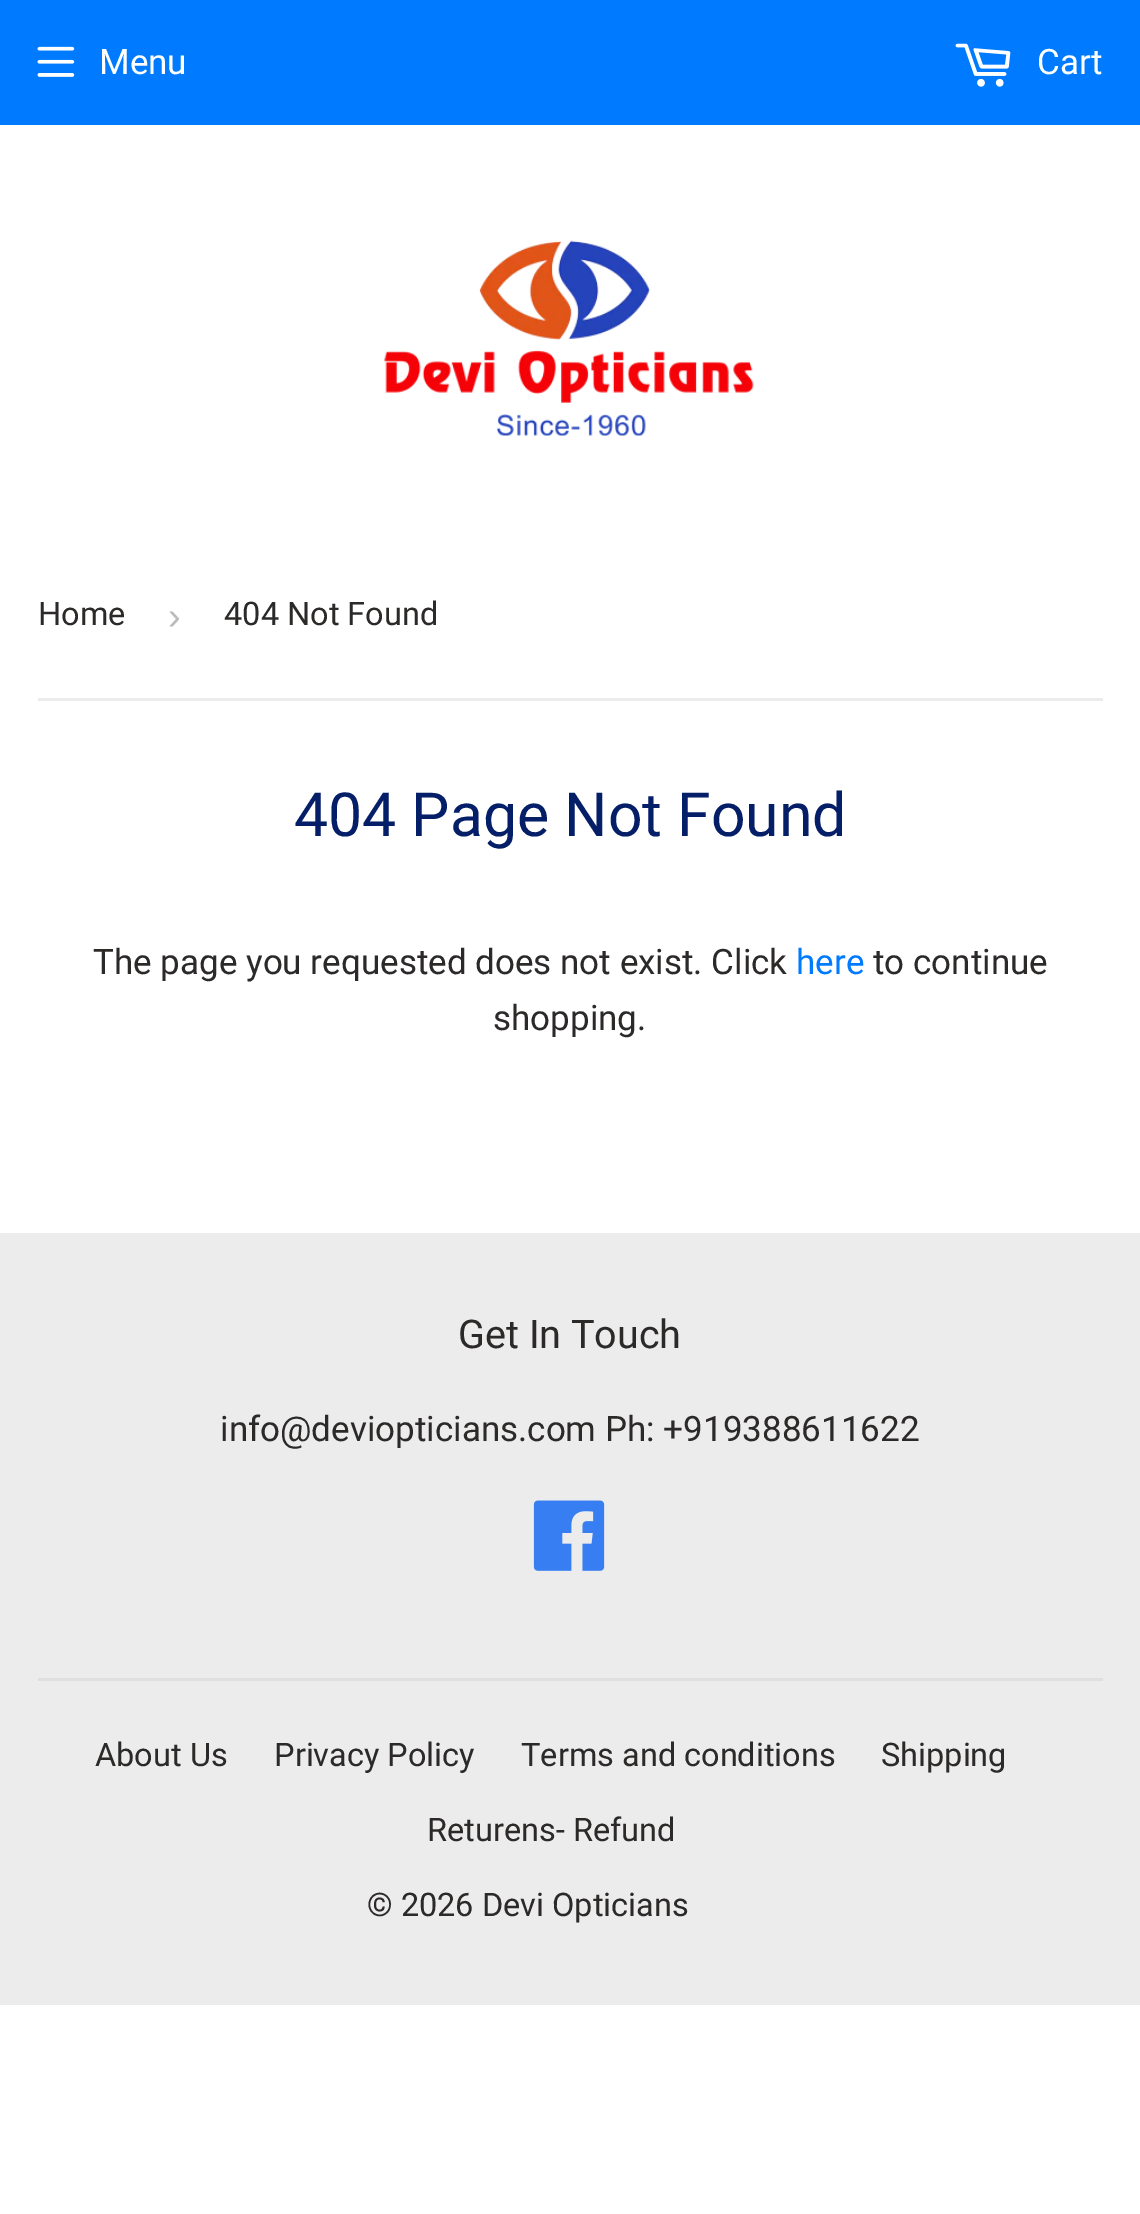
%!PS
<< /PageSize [1140 2214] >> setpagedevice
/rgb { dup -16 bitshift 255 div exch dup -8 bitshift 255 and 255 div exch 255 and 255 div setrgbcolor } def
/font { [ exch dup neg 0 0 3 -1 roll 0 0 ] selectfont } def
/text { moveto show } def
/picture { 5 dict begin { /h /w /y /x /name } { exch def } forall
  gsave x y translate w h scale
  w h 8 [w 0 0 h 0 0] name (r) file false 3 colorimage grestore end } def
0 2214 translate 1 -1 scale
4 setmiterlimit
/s1 { /Roboto-Regular 35 font 16#FFFFFF rgb } def
/s2 { /Roboto-Regular 32.5 font 16#2C2929 rgb } def
/s3 { /LiberationSans-Regular 38 font 16#BBBBBB rgb } def
/s4 { /Roboto-Regular 60.75 font 16#051E68 rgb } def
/s5 { /Roboto-Regular 35 font 16#2C2929 rgb } def
/s6 { /Roboto-Regular 35 font 16#007BFF rgb } def
/s7 { /Roboto-Regular 39.5 font 16#2C2929 rgb } def
16#FFFFFF rgb
0 0 1140 2214 rectfill
16#007BFF rgb
0 0 1140 125 rectfill
(pic1.raw) 37 46 38 31 picture
s1
(Menu) 99 74 text
(pic2.raw) 955 43 56 44 picture
(Cart) 1037 74 text
(pic3.raw) 384 240 370 196 picture
16#ECECEC rgb
38 698 1065 3 rectfill
s2
(Home) 38 625 text
s3
(›) 168 629 text
s2
(404 Not Found) 224 625 text
s4
(404 Page Not Found) 294 836 text
s5
(The page you requested does not exist. Click) 93 974 text
s6
(here) 796 974 text
s5
(to continue) 873 974 text
(shopping.) 493 1030 text
16#ECECEC rgb
0 1233 1140 772 rectfill
s7
(Get In Touch) 458 1348 text
s5
(info@deviopticians.com Ph: +919388611622) 220 1441 text
(pic4.raw) 533 1500 72 71 picture
16#DFDFDF rgb
38 1678 1065 3 rectfill
s2
(About Us) 95 1766 text
(Privacy Policy) 274 1766 text
(Terms and conditions) 521 1766 text
(Shipping) 881 1766 text
(Returens- Refund) 427 1841 text
(© 2026 Devi Opticians) 367 1916 text
showpage
